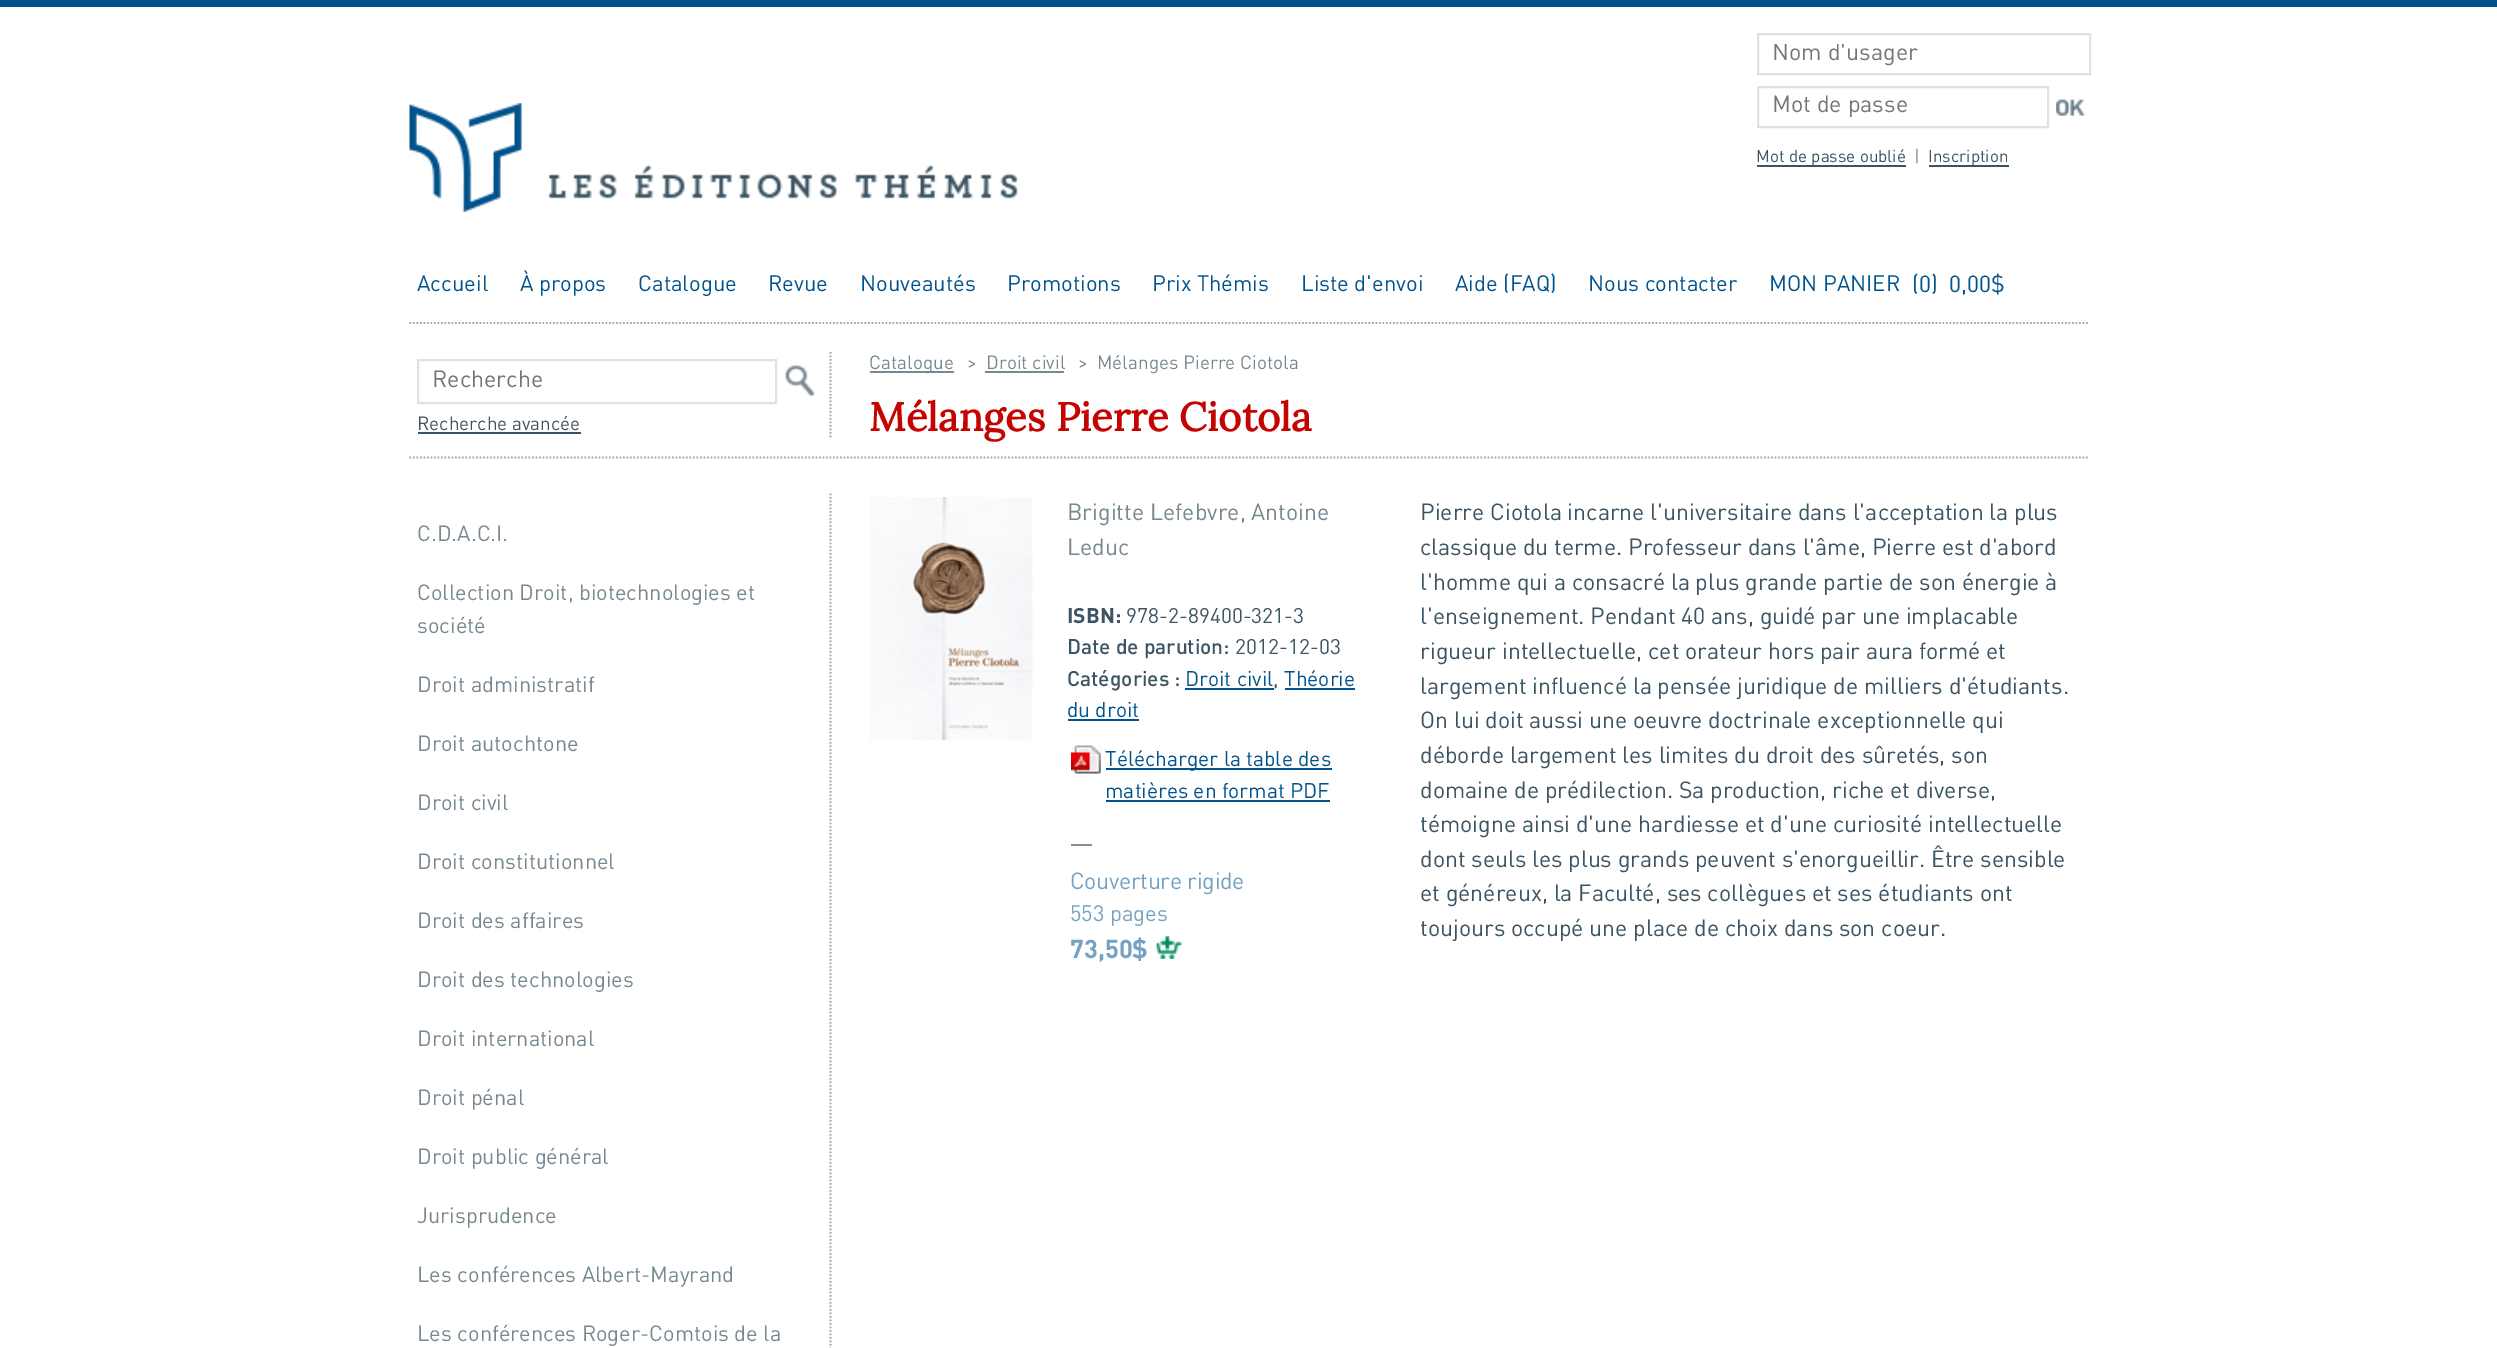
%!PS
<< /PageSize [2497 1348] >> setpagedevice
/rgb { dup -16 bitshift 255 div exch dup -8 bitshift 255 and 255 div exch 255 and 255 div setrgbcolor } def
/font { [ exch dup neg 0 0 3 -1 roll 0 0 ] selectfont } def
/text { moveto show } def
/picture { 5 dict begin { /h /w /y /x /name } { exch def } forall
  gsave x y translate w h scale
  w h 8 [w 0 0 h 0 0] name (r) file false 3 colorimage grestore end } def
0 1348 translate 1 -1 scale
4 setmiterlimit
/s1 { /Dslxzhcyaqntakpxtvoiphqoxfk-Regular 23.25 font 16#757575 rgb } def
/s2 { /Dslxzhcyaqntakpxtvoiphqoxfk-Regular 17 font 16#3D5462 rgb } def
/s3 { /Dslxzhcyaqntakpxtvoiphqoxfk-Regular 17 font 16#788891 rgb } def
/s4 { /Dslxzhcyaqntakpxtvoiphqoxfk-Regular 22 font 16#00538C rgb } def
/s5 { /Dslxzhcyaqntakpxtvoiphqoxfk-Regular 23 font 16#00538C rgb } def
/s6 { /Dslxzhcyaqntakpxtvoiphqoxfk-Regular 18.9 font 16#3D5462 rgb } def
/s7 { /Dslxzhcyaqntakpxtvoiphqoxfk-Regular 18.9 font 16#788891 rgb } def
/s8 { /Lora-Bold 39.9 font 16#C50300 rgb } def
/s9 { /Dslxzhcyaqntakpxtvoiphqoxfk-Regular 21.8 font 16#788891 rgb } def
/s10 { /Dslxzhcyaqntakpxtvoiphqoxfk-Regular 23.1 font 16#788891 rgb } def
/s11 { /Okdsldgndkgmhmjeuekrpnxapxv-Bold 21 font 16#3D5462 rgb } def
/s12 { /Dslxzhcyaqntakpxtvoiphqoxfk-Regular 21 font 16#3D5462 rgb } def
/s13 { /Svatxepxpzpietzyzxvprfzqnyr-Medium 21 font 16#3D5462 rgb } def
/s14 { /Dslxzhcyaqntakpxtvoiphqoxfk-Regular 21 font 16#00538C rgb } def
/s15 { /Dslxzhcyaqntakpxtvoiphqoxfk-Regular 22 font 16#75A2C1 rgb } def
/s16 { /Okdsldgndkgmhmjeuekrpnxapxv-Bold 25.5 font 16#75A2C1 rgb } def
/s17 { /Dslxzhcyaqntakpxtvoiphqoxfk-Regular 23.1 font 16#3D5462 rgb } def
16#FFFFFF rgb
0 0 2497 1348 rectfill
16#005188 rgb
0 0 2497 7 rectfill
(pic1.raw) 409 103 609 109 picture
16#DEE2E5 rgb
2 setlinewidth
1758 34 332 40 rectstroke
gsave
1762 44 324 23 rectclip
s1
(Nom d'usager) 1772 60 text
grestore
1758 87 290 40 rectstroke
s1
(Mot de passe) 1772 112 text
(pic2.raw) 2056 99 29 17 picture
16#3D5462 rgb
1757 165 149 2 rectfill
s2
(Mot de passe oublié) 1756 162 text
s3
(|) 1914 162 text
16#3D5462 rgb
1929 165 80 2 rectfill
(Inscription) 1928 162 text
s4
(Accueil) 417 291 text
(À propos) 520 291 text
(Catalogue) 638 291 text
(Revue) 768 291 text
(Nouveautés) 860 291 text
(Promotions) 1007 291 text
(Prix Thémis) 1152 291 text
(Liste d'envoi) 1301 291 text
(Aide \(FAQ\)) 1455 291 text
(Nous contacter) 1588 291 text
(MON PANIER) 1769 291 text
s5
(\(0\)  0,00$) 1912 292 text
16#9EA9B0 rgb
1.8 setlinewidth
[1.75 1.75] 0 setdash
409.5 323 moveto 2089.5 323 lineto stroke
409.5 457.5 moveto 2089.5 457.5 lineto stroke
16#DEE2E5 rgb
2 setlinewidth
[] 0 setdash
418 360 358 43 rectstroke
s1
(Recherche) 432 387 text
(pic3.raw) 785 365 30 31 picture
s6
(Recherche avancée) 417 430 text
418 432 163 2 rectfill
16#9EA9B0 rgb
1.8 setlinewidth
[1.75 1.75] 0 setdash
830.5 352 moveto 830.5 397 lineto stroke
16#788891 rgb
870 371 84 2 rectfill
(Catalogue) 869 369 text
(>) 967 369 text
(Droit civil) 986 369 text
985 371 79 2 rectfill
(>) 1078 369 text
(Mélanges Pierre Ciotola) 1097 369 text
16#9EA9B0 rgb
830.5 397 moveto 830.5 437.5 lineto stroke
s8
(Mélanges Pierre Ciotola) 869 431 text
s9
(C.D.A.C.I.) 417 541 text
(Collection Droit, biotechnologies et) 417 600 text
(société) 417 633 text
(Droit administratif) 417 692 text
(Droit autochtone) 417 751 text
(Droit civil) 417 810 text
(Droit constitutionnel) 417 869 text
(Droit des affaires) 417 928 text
(Droit des technologies) 417 987 text
(Droit international) 417 1046 text
(Droit pénal) 417 1105 text
(Droit public général) 417 1164 text
(Jurisprudence) 417 1223 text
(Les conférences Albert-Mayrand) 417 1282 text
(Les conférences Roger-Comtois de la) 417 1341 text
16#9EA9B0 rgb
830.5 493.5 moveto 830.5 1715 lineto stroke
(pic4.raw) 870 497 163 244 picture
s10
(Brigitte Lefebvre, Antoine) 1067 520 text
(Leduc) 1067 555 text
s11
(ISBN:) 1067 623 text
s12
(978-2-89400-321-3) 1126 623 text
s13
(Date de parution:) 1067 654 text
s12
(2012-12-03) 1235 654 text
s13
(Catégories :) 1067 686 text
s14
(Droit civil) 1185 686 text
s12
(,) 1273 686 text
16#00538C rgb
1185 688 89 2 rectfill
1285 688 70 2 rectfill
(Théorie) 1284 686 text
(du droit) 1067 717 text
1068 719 71 2 rectfill
(pic5.raw) 1071 745 30 29 picture
1106 768 226 2 rectfill
(Télécharger la table des) 1105 766 text
(matières en format PDF) 1105 798 text
1106 800 224 2 rectfill
16#82919A rgb
1071 844 21 2 rectfill
/Dslxzhcyaqntakpxtvoiphqoxfk-Regular 23.1 font
16#75A2C1 rgb
1070 889 moveto -0.3 0 (Couverture rigide) ashow
s15
(553 pages) 1070 921 text
s16
(73,50$) 1070 958 text
(pic6.raw) 1156 936 26 23 picture
s17
(Pierre Ciotola incarne l'universitaire dans l'acceptation la plus) 1420 520 text
(classique du terme. Professeur dans l'âme, Pierre est d'abord) 1420 555 text
(l'homme qui a consacré la plus grande partie de son énergie à) 1420 590 text
(l'enseignement. Pendant 40 ans, guidé par une implacable) 1420 624 text
(rigueur intellectuelle, cet orateur hors pair aura formé et) 1420 659 text
(largement influencé la pensée juridique de milliers d'étudiants.) 1420 694 text
(On lui doit aussi une oeuvre doctrinale exceptionnelle qui) 1420 728 text
(déborde largement les limites du droit des sûretés, son) 1420 763 text
(domaine de prédilection. Sa production, riche et diverse,) 1420 798 text
(témoigne ainsi d'une hardiesse et d'une curiosité intellectuelle) 1420 832 text
(dont seuls les plus grands peuvent s'enorgueillir. Être sensible) 1420 867 text
(et généreux, la Faculté, ses collègues et ses étudiants ont) 1420 901 text
(toujours occupé une place de choix dans son coeur.) 1420 936 text
showpage
